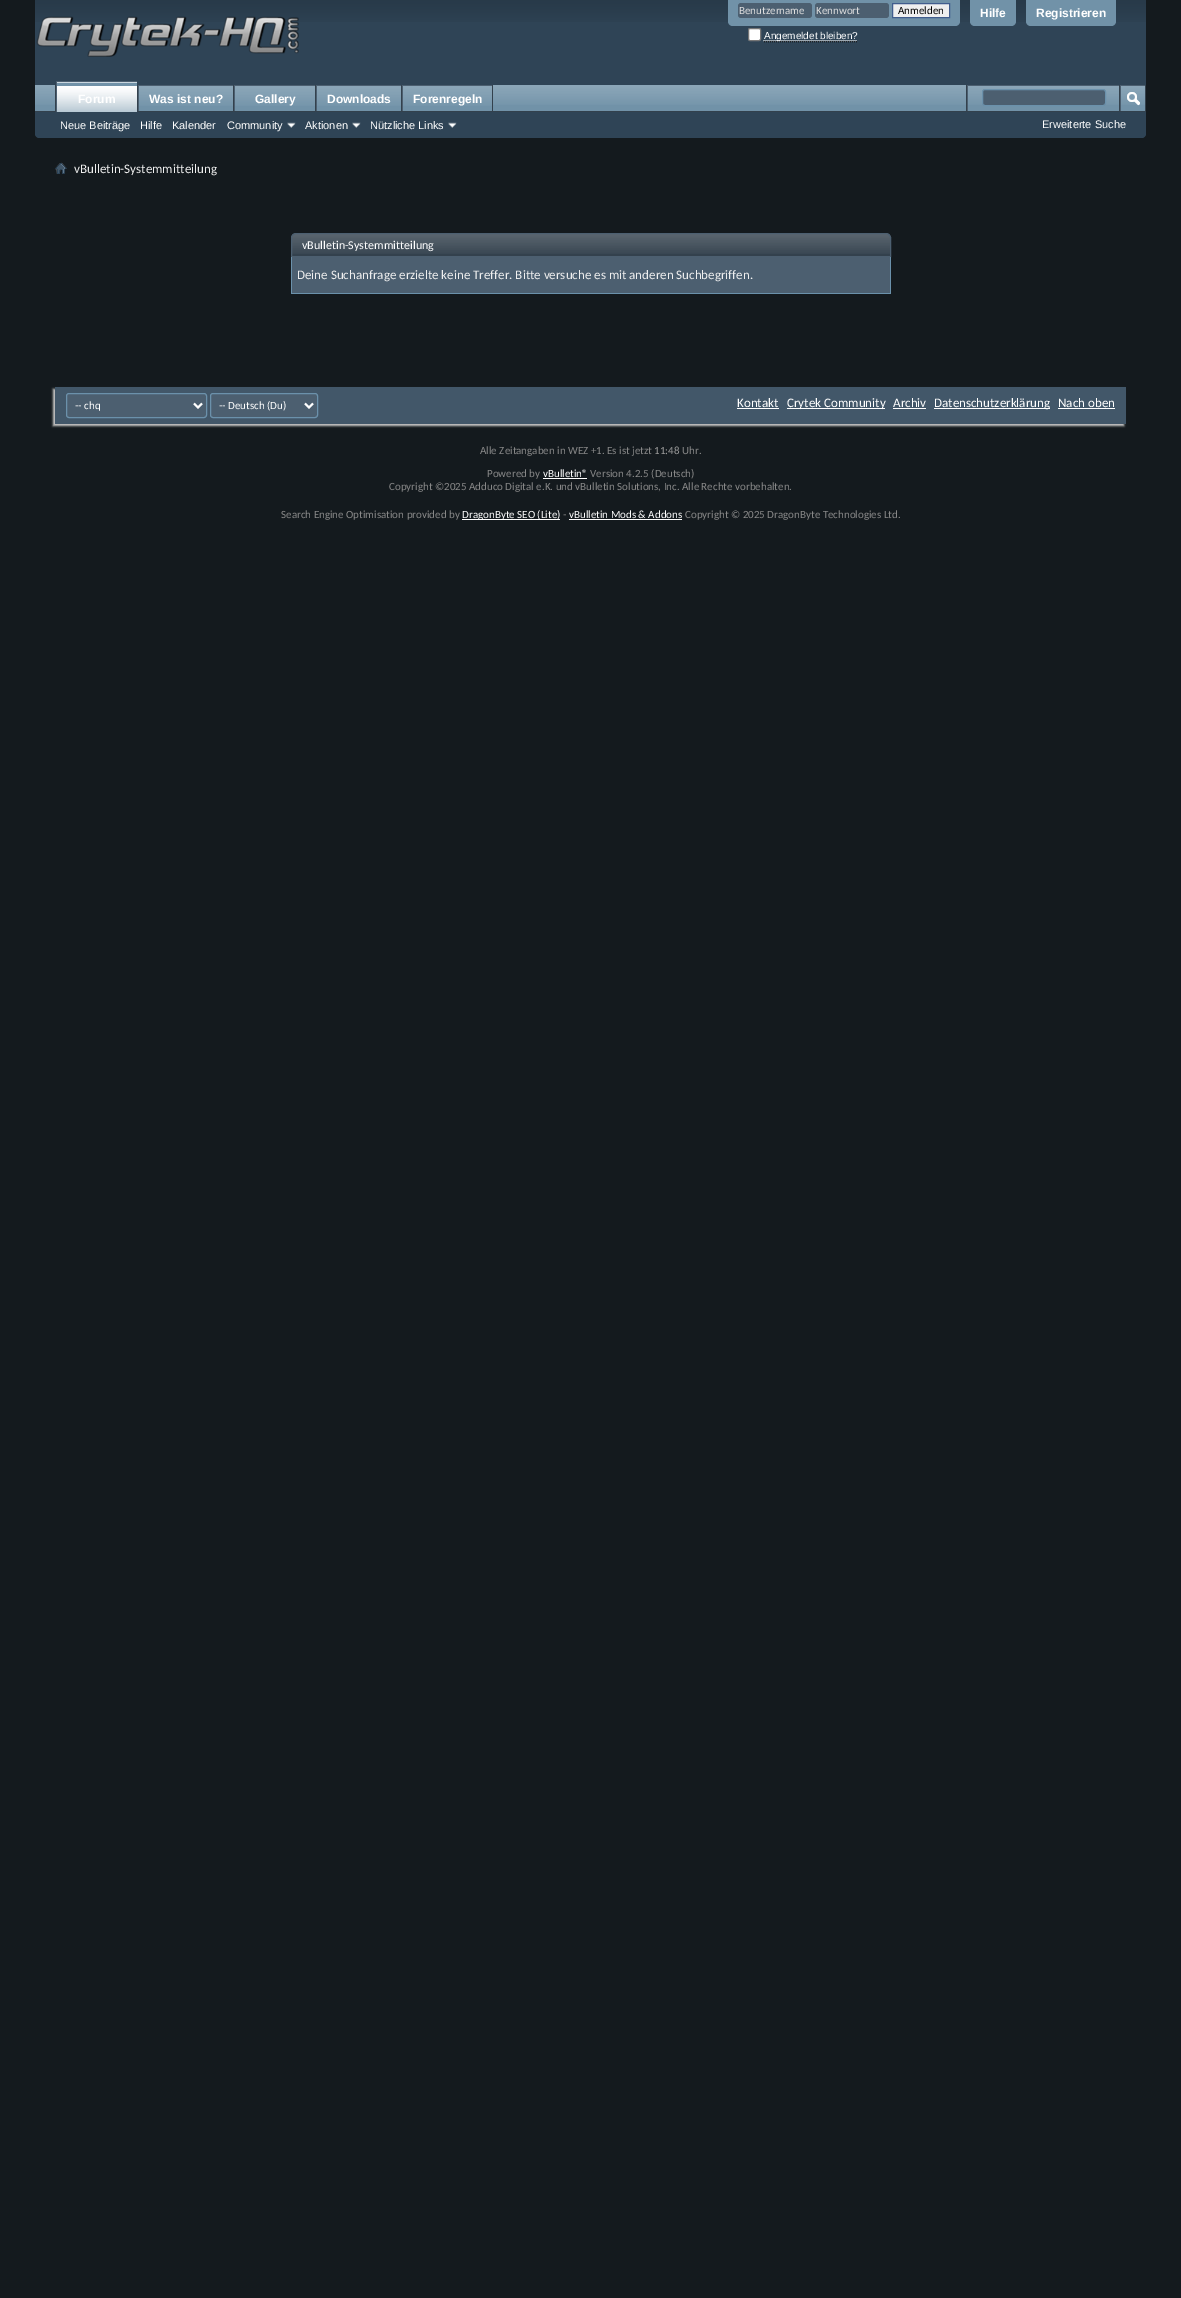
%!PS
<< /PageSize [1181 2298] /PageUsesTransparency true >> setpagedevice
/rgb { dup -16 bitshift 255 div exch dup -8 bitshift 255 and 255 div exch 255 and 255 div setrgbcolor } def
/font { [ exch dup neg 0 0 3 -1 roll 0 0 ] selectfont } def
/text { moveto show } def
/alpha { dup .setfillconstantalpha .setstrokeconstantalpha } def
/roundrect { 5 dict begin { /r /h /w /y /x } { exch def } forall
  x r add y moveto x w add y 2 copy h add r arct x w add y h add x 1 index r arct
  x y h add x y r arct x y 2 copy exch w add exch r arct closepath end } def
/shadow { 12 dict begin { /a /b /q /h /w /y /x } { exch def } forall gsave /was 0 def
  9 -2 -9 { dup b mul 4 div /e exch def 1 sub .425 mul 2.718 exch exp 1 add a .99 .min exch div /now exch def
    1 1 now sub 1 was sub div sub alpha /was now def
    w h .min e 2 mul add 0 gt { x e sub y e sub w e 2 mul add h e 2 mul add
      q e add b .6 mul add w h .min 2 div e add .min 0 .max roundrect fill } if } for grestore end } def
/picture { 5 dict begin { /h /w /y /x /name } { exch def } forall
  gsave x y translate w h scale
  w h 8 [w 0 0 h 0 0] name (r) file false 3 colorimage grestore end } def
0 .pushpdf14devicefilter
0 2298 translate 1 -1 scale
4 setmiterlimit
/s1 { /Carlito-Regular 11 font 16#DFDFDF rgb } def
/s2 { /Carlito-Regular 11 font 16#000000 rgb } def
/s3 { /LiberationSans-Regular 10 font 16#FFFFFF rgb } def
/s4 { /LiberationSans-Bold 12 font 16#FFFFFF rgb } def
/s5 { /LiberationSans-Regular 11 font 16#FFFFFF rgb } def
/s6 { /Carlito-Regular 13 font 16#EFEFEF rgb } def
/s7 { /Carlito-Regular 12 font 16#FFFFFF rgb } def
/s8 { /Carlito-Regular 11 font 16#FFFFFF rgb } def
/s9 { /Carlito-Regular 13 font 16#FFFFFF rgb } def
/s10 { /Carlito-Regular 11 font 16#888888 rgb } def
/s11 { /Carlito-Regular 11 font 16#999999 rgb } def
16#141A1E rgb
0 0 1181 2298 rectfill
16#2F4456 rgb
35 0 moveto 1146 0 lineto 1146 133 lineto 1146 136 1144 138 1141 138 curveto 40 138 lineto 37 138 35 136 35 133 curveto closepath fill
(pic1.raw) 35 0 1111 22 picture
(pic2.raw) 36 16 263 41 picture
16#7192A8 rgb
728 0 moveto 960 0 lineto 960 21 lineto 960 24 958 26 955 26 curveto 733 26 lineto 730 26 728 24 728 21 curveto closepath fill
16#4C5F70 rgb
738 3 74 15 3 roundrect fill
s1
(Benutzername) 739 14 text
16#4C5F70 rgb
815 3 74 15 3 roundrect fill
s1
(Kennwort) 816 14 text
16#EFEFEF rgb
892.5 3.5 moveto 949.5 3.5 lineto 949.5 17.5 lineto 892.5 17.5 lineto closepath gsave fill grestore
16#415D8D rgb
stroke
s2
(Anmelden) 898 14 text
16#FFFFFF rgb
748.5 28.5 12 12 1.5 roundrect gsave fill grestore
16#767676 rgb
stroke
16#000000 rgb
[1 1] 0 setdash
764 41.5 moveto 858 41.5 lineto stroke
16#FFFFFF rgb
763.5 40.5 moveto 857.5 40.5 lineto stroke
s3
(Angemeldet bleiben?) 764 39 text
16#7192A8 rgb
970 0 moveto 1016 0 lineto 1016 21 lineto 1016 24 1014 26 1011 26 curveto 975 26 lineto 972 26 970 24 970 21 curveto closepath fill
s4
(Hilfe) 980 17 text
16#7192A8 rgb
1026 0 moveto 1116 0 lineto 1116 21 lineto 1116 24 1114 26 1111 26 curveto 1031 26 lineto 1028 26 1026 24 1026 21 curveto closepath fill
s4
(Registrieren) 1036 17 text
16#2F4456 rgb
35 85 moveto 1146 85 lineto 1146 133 lineto 1146 136 1144 138 1141 138 curveto 40 138 lineto 37 138 35 136 35 133 curveto closepath fill
16#7192A8 rgb
35 85 1110 26 rectfill
(pic3.raw) 35 85 1110 20 picture
16#33414D rgb
137 85 1 26 rectfill
55 85 1 26 rectfill
233 85 1 27 rectfill
16#4C5F70 rgb
138 85 95 1 rectfill
138 85 1 27 rectfill
16#33414D rgb
315 85 1 27 rectfill
16#4C5F70 rgb
234 85 81 1 rectfill
234 85 1 27 rectfill
16#33414D rgb
401 85 1 27 rectfill
16#4C5F70 rgb
316 85 85 1 rectfill
316 85 1 27 rectfill
16#33414D rgb
492 85 1 27 rectfill
16#4C5F70 rgb
402 85 90 1 rectfill
402 85 1 27 rectfill
16#33414D rgb
35 111 1111 1 rectfill
16#7192A8 rgb
57 82 80 30 rectfill
(pic4.raw) 57 82 80 30 picture
16#4C5F70 rgb
56 81 81 1 rectfill
56 81 1 31 rectfill
s4
(Forum) 78 103 text
16#7192A8 rgb
139 86 94 19 rectfill
(pic5.raw) 139 86 94 20 picture
s4
(Was ist neu?) 149 103 text
16#7192A8 rgb
235 86 80 19 rectfill
(pic6.raw) 235 86 80 20 picture
s4
(Gallery) 255 103 text
16#7192A8 rgb
317 86 84 19 rectfill
(pic7.raw) 317 86 84 20 picture
s4
(Downloads) 327 103 text
16#7192A8 rgb
403 86 89 19 rectfill
(pic8.raw) 403 86 89 20 picture
s4
(Forenregeln) 413 103 text
s5
(Neue Beiträge) 60 129 text
(Hilfe) 140 129 text
(Kalender) 172 129 text
(Community) 227 129 text
(pic9.raw) 287 122 9 6 picture
(Aktionen) 305 129 text
(pic9.raw) 352 122 9 6 picture
(Nützliche Links) 370 129 text
(pic9.raw) 448 122 9 6 picture
16#33414D rgb
966 85 1 26 rectfill
16#4C5F70 rgb
967 85 152 1 rectfill
967 85 1 26 rectfill
982.5 89.5 123 16 2.5 roundrect gsave fill grestore
16#6B91AB rgb
[] 0 setdash
stroke
16#33414D rgb
1145 85 1 26 rectfill
1119 85 1 26 rectfill
16#4C5F70 rgb
1120 85 25 1 rectfill
1120 85 1 26 rectfill
(pic10.raw) 1127 92 13 14 picture
s5
(Erweiterte Suche) 1042 128 text
(pic11.raw) 55 162 12 12 picture
s6
(vBulletin-Systemmitteilung) 74 173 text
16#33414D rgb
296 233 moveto 886 233 lineto 889 233 891 235 891 238 curveto 891 257 lineto 291 257 lineto 291 238 lineto 291 235 293 233 296 233 curveto closepath fill
(pic12.raw) 291 234 600 20 picture
16#4C5F70 rgb
296 233.5 moveto 886 233.5 lineto 888.5 233.5 890.5 235.5 890.5 238 curveto 890.5 256.5 lineto 291.5 256.5 lineto 291.5 238 lineto 291.5 235.5 293.5 233.5 296 233.5 curveto closepath stroke
s7
(vBulletin-Systemmitteilung) 302 249 text
16#6B91AB rgb
890 257 1 37 rectfill
291 293 600 1 rectfill
291 257 1 37 rectfill
16#4C5F70 rgb
292 257 598 36 rectfill
s6
(Deine Suchanfrage erzielte keine Treffer. Bitte versuche es mit anderen Suchbegriffen.) 297 279 text
16#C8C8C8 rgb
53 389 1071 37 0 1 1 shadow
16#425769 rgb
55 387 1071 37 rectfill
16#4C5F70 rgb
66.5 393.5 140 24 2.5 roundrect gsave fill grestore
16#6B91AB rgb
stroke
16#FFFFFF rgb
2 setlinewidth
194 403.5 moveto 198 407.5 lineto 202 403.5 lineto stroke
s8
(-- chq) 75 409 text
16#4C5F70 rgb
210.5 393.5 107 24 2.5 roundrect gsave fill grestore
16#6B91AB rgb
1 setlinewidth
stroke
16#FFFFFF rgb
2 setlinewidth
305 403.5 moveto 309 407.5 lineto 313 403.5 lineto stroke
(-- Deutsch \(Du\)) 219 409 text
s9
(Kontakt) 737 407 text
737 408 42 1 rectfill
787 408 98 1 rectfill
(Crytek Community) 787 407 text
(Archiv) 893 407 text
893 408 33 1 rectfill
934 408 116 1 rectfill
(Datenschutzerklärung) 934 407 text
(Nach oben) 1058 407 text
1058 408 57 1 rectfill
s10
(Alle Zeitangaben in WEZ +1. Es ist jetzt) 480 454 text
s11
(11:48) 654 454 text
s10
(Uhr.) 682 454 text
(Powered by) 487 477 text
s8
(vBulletin®) 543 477 text
543 478 44 1 rectfill
s10
(Version 4.2.5 \(Deutsch\)) 590 477 text
(Copyright ©2025 Adduco Digital e.K. und vBulletin Solutions, Inc. Alle Rechte vorbehalten.) 389 490 text
(Search Engine Optimisation provided by) 281 518 text
16#FFFFFF rgb
462 519 98 1 rectfill
(DragonByte SEO \(Lite\)) 462 518 text
s10
(-) 563 518 text
s8
(vBulletin Mods & Addons) 569 518 text
569 519 113 1 rectfill
s10
(Copyright © 2025 DragonByte Technologies Ltd.) 685 518 text
.poppdf14devicefilter showpage
